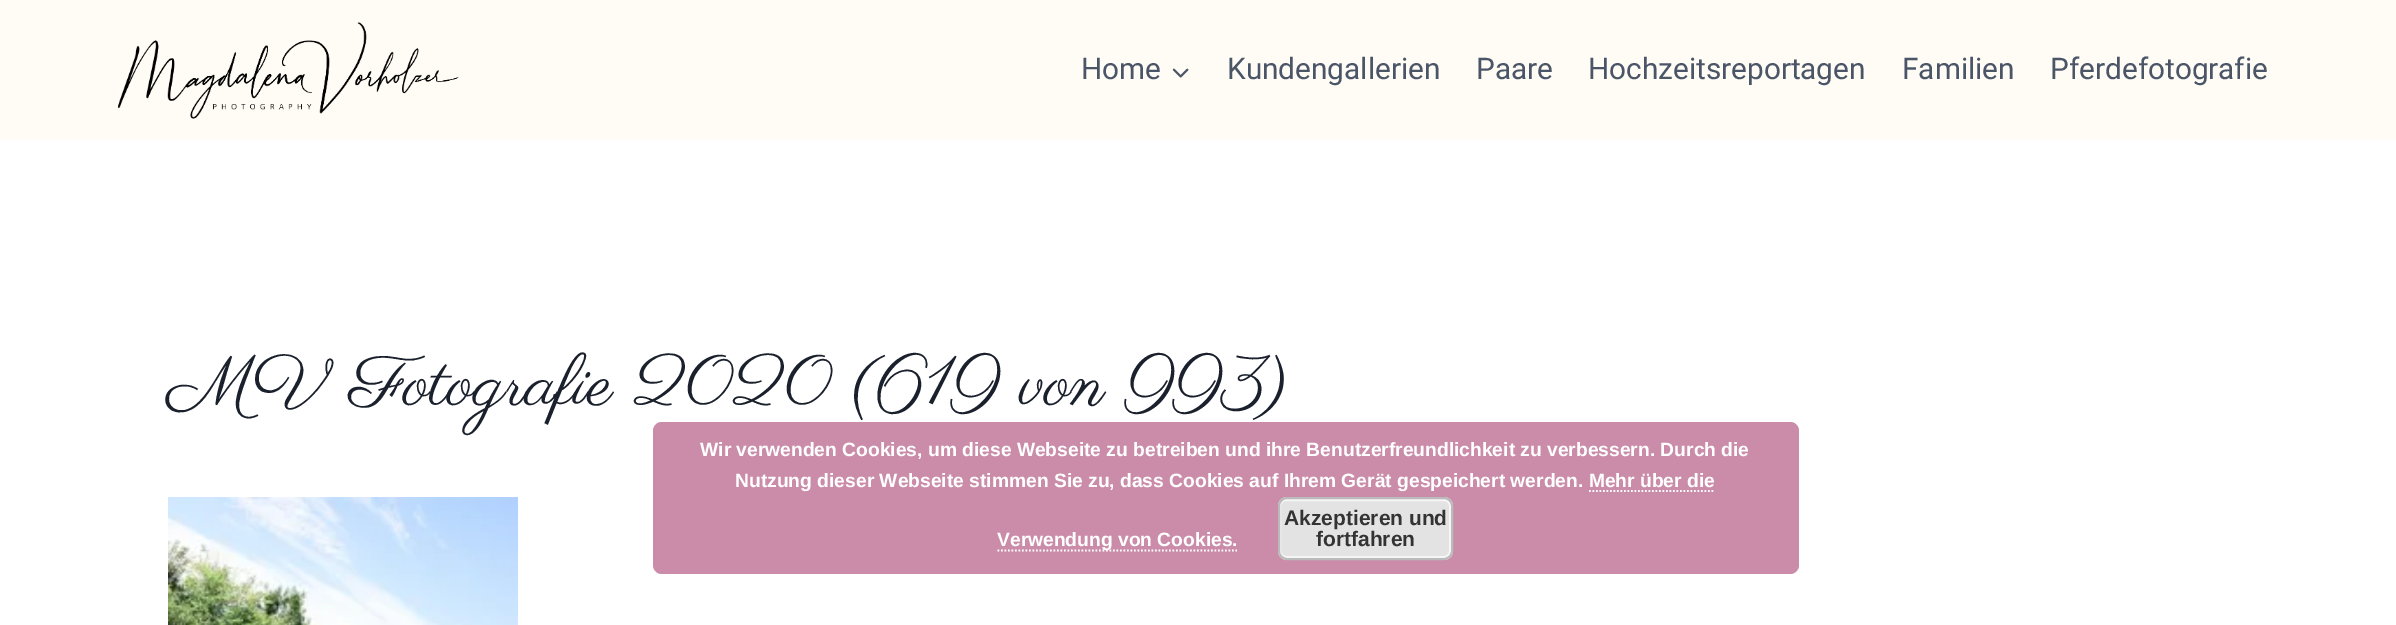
%!PS
<< /PageSize [2396 625] >> setpagedevice
/rgb { dup -16 bitshift 255 div exch dup -8 bitshift 255 and 255 div exch 255 and 255 div setrgbcolor } def
/font { [ exch dup neg 0 0 3 -1 roll 0 0 ] selectfont } def
/text { moveto show } def
/roundrect { 5 dict begin { /r /h /w /y /x } { exch def } forall
  x r add y moveto x w add y 2 copy h add r arct x w add y h add x 1 index r arct
  x y h add x y r arct x y 2 copy exch w add exch r arct closepath end } def
/picture { 5 dict begin { /h /w /y /x /name } { exch def } forall
  gsave x y translate w h scale
  w h 8 [w 0 0 h 0 0] name (r) file false 3 colorimage grestore end } def
0 625 translate 1 -1 scale
4 setmiterlimit
/s1 { /Roboto-Regular 29.75 font 16#4A5568 rgb } def
/s2 { /Parisienne-Regular 70 font 16#1A202C rgb } def
/s3 { /LiberationSans-Bold 19.25 font 16#FFFFFF rgb } def
/s4 { /LiberationSans-Bold 21 font 16#333333 rgb } def
16#FFFFFF rgb
0 0 2396 625 rectfill
16#FFFBF5 rgb
0 0 2396 140 rectfill
(pic1.raw) 118 22 341 97 picture
s1
(Home) 1081 79 text
(pic2.raw) 1172 68 17 10 picture
(Kundengallerien) 1227 79 text
(Paare) 1476 79 text
(Hochzeitsreportagen) 1588 79 text
(Familien) 1902 79 text
(Pferdefotografie) 2050 79 text
s2
(MV Fotografie 2020 \(619 von 993\)) 168 404 text
(pic3.raw) 168 497 350 128 picture
16#CA8CA8 rgb
653 422 1146 152 9 roundrect fill
s3
(Wir verwenden Cookies, um diese Webseite zu betreiben und ihre Benutzerfreundlichkeit zu verbessern. Durch die) 700 456 text
(Nutzung dieser Webseite stimmen Sie zu, dass Cookies auf Ihrem Gerät gespeichert werden. Mehr über die) 735 487 text
1.8 setlinewidth
[1.75 1.75] 0 setdash
997.5 550.5 moveto 1237 550.5 lineto stroke
(Verwendung von Cookies.) 997 546 text
1589 491 moveto 1715 491 lineto stroke
16#E3E3E3 rgb
1278 497 175 63 9 roundrect fill
16#F6F6F6 rgb
2 setlinewidth
[] 0 setdash
1280 500 170 57 6 roundrect stroke
16#BBBBBB rgb
1279 498 173 61 8 roundrect stroke
s4
(Akzeptieren und) 1284 525 text
(fortfahren) 1316 546 text
showpage
